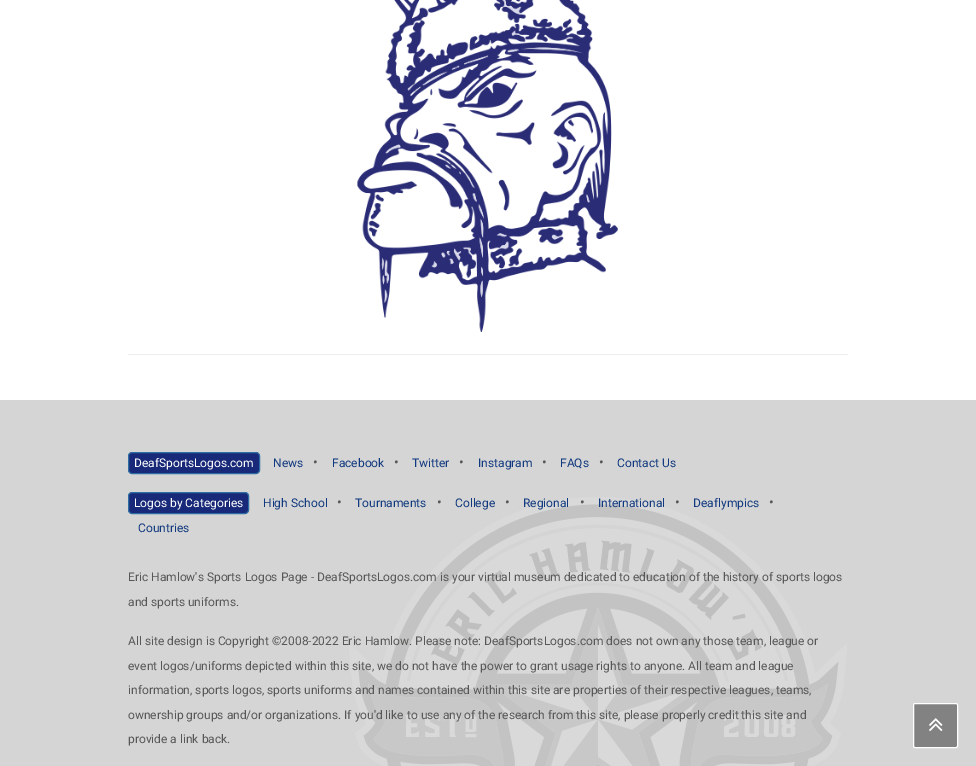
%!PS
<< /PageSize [976 766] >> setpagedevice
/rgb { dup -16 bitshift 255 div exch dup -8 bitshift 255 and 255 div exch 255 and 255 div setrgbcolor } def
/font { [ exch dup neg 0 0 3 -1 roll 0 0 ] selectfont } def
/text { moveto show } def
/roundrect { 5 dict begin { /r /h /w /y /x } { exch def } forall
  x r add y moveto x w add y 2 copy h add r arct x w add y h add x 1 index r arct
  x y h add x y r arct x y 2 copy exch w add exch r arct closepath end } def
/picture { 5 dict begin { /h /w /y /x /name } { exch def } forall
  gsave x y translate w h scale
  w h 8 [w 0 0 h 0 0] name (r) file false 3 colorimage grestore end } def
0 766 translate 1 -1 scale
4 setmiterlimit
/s1 { /Roboto-Regular 12 font 16#FFFFFF rgb } def
/s2 { /Roboto-Regular 12 font 16#11397F rgb } def
/s3 { /Roboto-Regular 14 font 16#575756 rgb } def
/s4 { /Roboto-Regular 12 font 16#575756 rgb } def
16#FFFFFF rgb
0 0 976 766 rectfill
(pic1.raw) 357 0 261 332 picture
16#EEEEEE rgb
128 354 720 1 rectfill
16#D5D5D5 rgb
0 400 976 366 rectfill
(pic2.raw) 349 497 498 269 picture
16#172978 rgb
128.5 452.5 131 21 3.5 roundrect gsave fill grestore
16#2E6DA4 rgb
stroke
s1
(DeafSportsLogos.com) 134 467 text
s2
(News) 273 467 text
s3
(•) 313 467 text
s2
(Facebook) 332 467 text
s3
(•) 394 467 text
s2
(Twitter) 412 467 text
s3
(•) 459 467 text
s2
(Instagram) 478 467 text
s3
(•) 542 467 text
s2
(FAQs) 560 467 text
s3
(•) 599 467 text
s2
(Contact Us) 617 467 text
16#172978 rgb
128.5 492.5 120 21 3.5 roundrect gsave fill grestore
16#2E6DA4 rgb
stroke
s1
(Logos by Categories) 134 507 text
s2
(High School) 263 507 text
s3
(•) 337 507 text
s2
(Tournaments) 355 507 text
s3
(•) 437 507 text
s2
(College) 455 507 text
s3
(•) 505 507 text
s2
(Regional) 523 507 text
s3
(•) 580 507 text
s2
(International) 598 507 text
s3
(•) 675 507 text
s2
(Deaflympics) 693 507 text
s3
(•) 769 507 text
s2
(Countries) 138 532 text
s4
(Eric Hamlow's Sports Logos Page - DeafSportsLogos.com is your virtual museum dedicated to education of the history of sports logos) 128 581 text
(and sports uniforms.) 128 606 text
(All site design is Copyright ©2008-2022 Eric Hamlow. Please note: DeafSportsLogos.com does not own any those team, league or) 128 645 text
(event logos/uniforms depicted within this site, we do not have the power to grant usage rights to anyone. All team and league) 128 670 text
(information, sports logos, sports uniforms and names contained within this site are properties of their respective leagues, teams,) 128 694 text
(ownership groups and/or organizations. If you'd like to use any of the research from this site, please properly credit this site and) 128 719 text
(provide a link back.) 128 743 text
16#828282 rgb
913.5 703.5 44 44 1.5 roundrect gsave fill grestore
16#FFFFFF rgb
stroke
(pic3.raw) 929 718 14 13 picture
showpage
